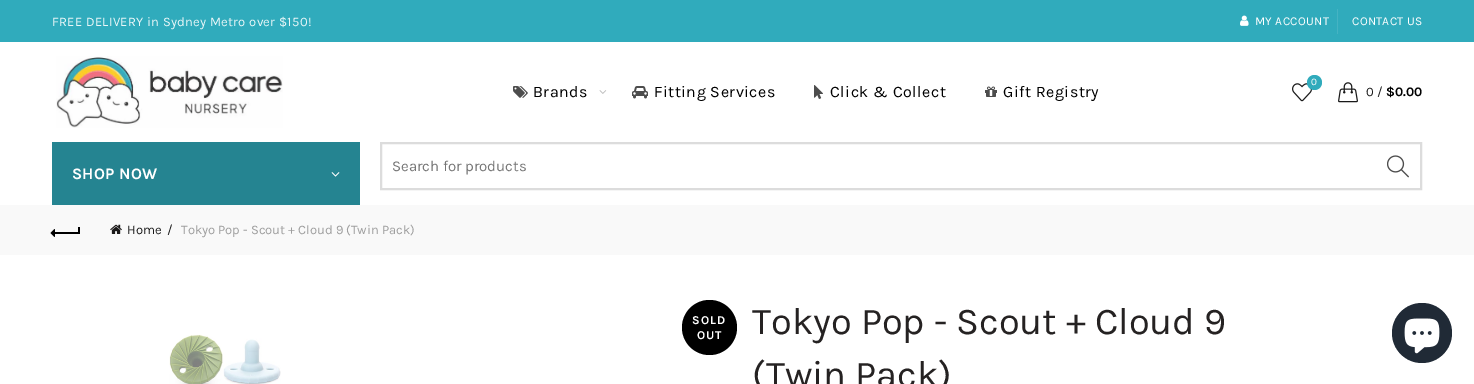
%!PS
<< /PageSize [1474 384] >> setpagedevice
/rgb { dup -16 bitshift 255 div exch dup -8 bitshift 255 and 255 div exch 255 and 255 div setrgbcolor } def
/font { [ exch dup neg 0 0 3 -1 roll 0 0 ] selectfont } def
/text { moveto show } def
/circle { newpath 0 360 arc closepath } def
/picture { 5 dict begin { /h /w /y /x /name } { exch def } forall
  gsave x y translate w h scale
  w h 8 [w 0 0 h 0 0] name (r) file false 3 colorimage grestore end } def
0 384 translate 1 -1 scale
4 setmiterlimit
/s1 { /Karla-Regular 10 font 16#FFFFFF rgb } def
/s2 { /Karla-Regular 13 font 16#1A1A1A rgb } def
/s3 { /Karla-Bold 13 font 16#000000 rgb } def
/s4 { /Karla-Regular 15 font 16#757575 rgb } def
/s5 { /Karla-Regular 13 font 16#9E9E9E rgb } def
/s6 { /Karla-Regular 38 font 16#252222 rgb } def
16#FFFFFF rgb
0 0 1474 384 rectfill
16#30ABBC rgb
0 0 1474 42 rectfill
/Karla-Regular 13 font
16#EAF7F8 rgb
52 26 moveto 0.3 0 (FREE DELIVERY in Sydney Metro over $150!) ashow
(pic1.raw) 1240 15 9 11 picture
/Karla-Regular 12 font
16#FFFFFF rgb
1255 25 moveto 0.3 0 (MY ACCOUNT) ashow
16#45B3C3 rgb
1337 9 1 25 rectfill
16#FFFFFF rgb
1352 25 moveto 0.3 0 (CONTACT US) ashow
(pic2.raw) 56 56 227 72 picture
(pic3.raw) 513 86 15 12 picture
/Karla-Regular 16 font
16#000000 rgb
533 97 moveto 0.5 0 (Brands) ashow
(pic4.raw) 599 90 8 4 picture
(pic5.raw) 632 86 16 13 picture
654 97 moveto 0.5 0 (Fitting Services) ashow
(pic6.raw) 814 85 9 14 picture
830 97 moveto 0.5 0 (Click & Collect) ashow
(pic7.raw) 985 86 12 11 picture
1003 97 moveto 0.5 0 (Gift Registry) ashow
(pic8.raw) 1292 83 20 19 picture
16#30ABBC rgb
1314.5 82.5 7.5 circle fill
s1
(0) 1311 85 text
(pic9.raw) 1338 82 20 21 picture
s2
(0 /) 1366 96 text
s3
($0.00) 1386 96 text
16#258491 rgb
52 142 308 63 rectfill
/Karla-Bold 16 font
16#FFFFFF rgb
72 179 moveto 0.3 0 (SHOP NOW) ashow
(pic10.raw) 331 172 9 5 picture
16#DCDCDC rgb
2 setlinewidth
381 143 1040 46 rectstroke
s4
(Search for products) 392 171 text
(pic11.raw) 1387 155 22 23 picture
16#F9F9F9 rgb
0 205 1474 50 rectfill
16#000000 rgb
54 232 25 2 rectfill
(pic12.raw) 50 229 5 8 picture
78 227 2 7 rectfill
(pic13.raw) 110 224 12 10 picture
s2
(Home) 127 234 text
(/) 167 234 text
s5
(Tokyo Pop - Scout + Cloud 9 \(Twin Pack\)) 181 234 text
16#000000 rgb
709.5 327.5 27.5 circle fill
/Karla-Bold 12 font
16#FFFFFF rgb
692 324 moveto 1 0 (SOLD) ashow
697 339 moveto 1 0 (OUT) ashow
(pic14.raw) 169 334 112 50 picture
s6
(Tokyo Pop - Scout + Cloud 9) 752 334 text
(\(Twin Pack\)) 752 387 text
16#202A36 rgb
1422 333 30 circle fill
(pic15.raw) 1404 318 36 36 picture
showpage
